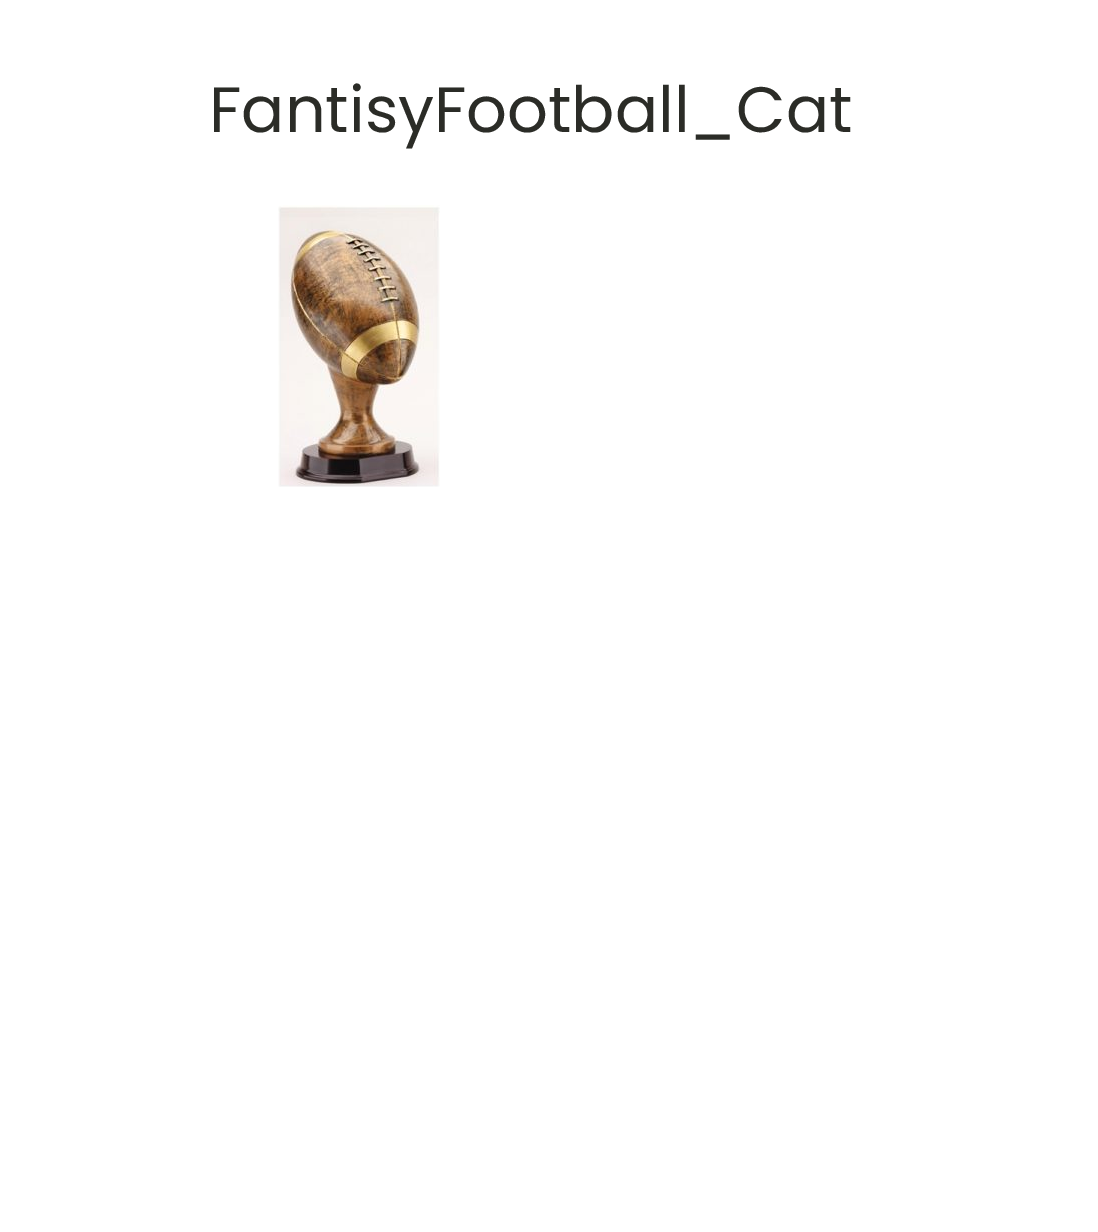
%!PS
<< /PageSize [1098 1232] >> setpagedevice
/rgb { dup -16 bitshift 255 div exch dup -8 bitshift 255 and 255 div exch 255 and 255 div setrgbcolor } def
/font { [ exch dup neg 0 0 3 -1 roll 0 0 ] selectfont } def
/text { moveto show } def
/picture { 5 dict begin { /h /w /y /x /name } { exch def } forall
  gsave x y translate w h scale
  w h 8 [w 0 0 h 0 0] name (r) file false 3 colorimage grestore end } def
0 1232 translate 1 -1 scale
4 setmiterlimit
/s1 { /Poppins-Regular 64 font 16#2B2C27 rgb } def
16#FFFFFF rgb
0 0 1098 1232 rectfill
s1
(FantisyFootball_Cat) 209 132 text
(pic1.raw) 278 205 162 282 picture
showpage
